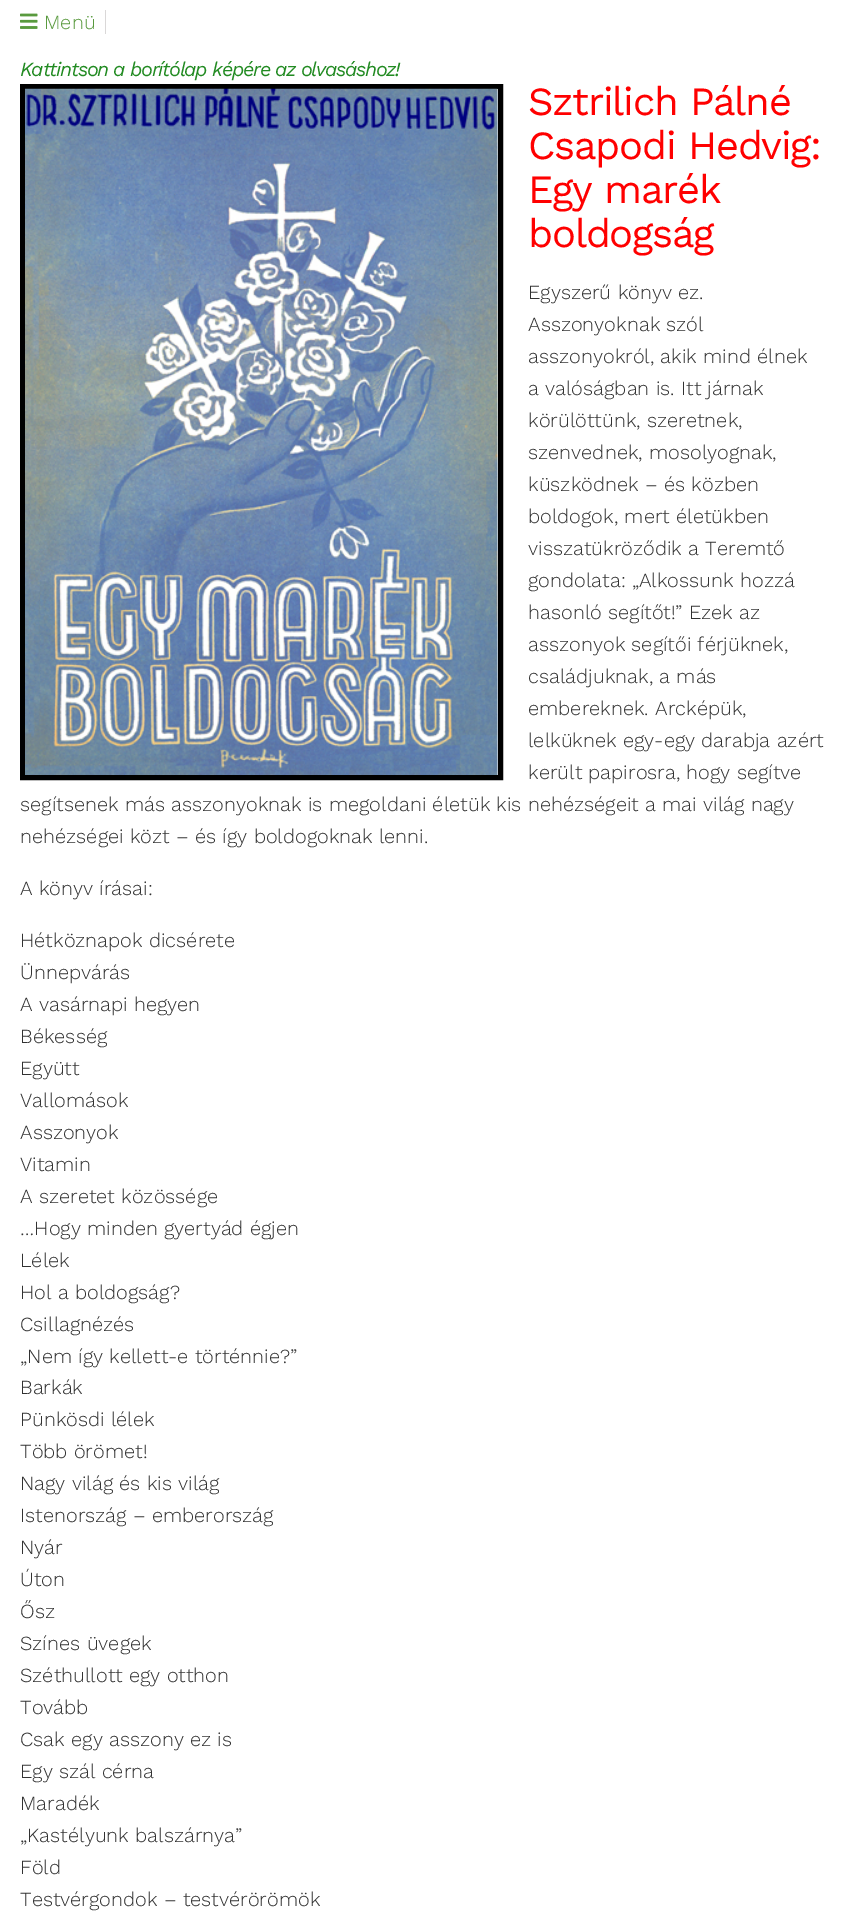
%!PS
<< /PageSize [843 1925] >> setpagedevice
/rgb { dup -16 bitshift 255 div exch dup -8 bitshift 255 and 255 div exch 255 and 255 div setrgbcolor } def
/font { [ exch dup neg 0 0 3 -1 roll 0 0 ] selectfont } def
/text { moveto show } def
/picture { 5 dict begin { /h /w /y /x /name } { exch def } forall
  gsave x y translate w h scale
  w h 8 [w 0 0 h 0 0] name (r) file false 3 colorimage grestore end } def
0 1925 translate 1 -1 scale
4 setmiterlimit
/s1 { /WorkSans-Light 20 font 16#599A3E rgb } def
/s2 { /WorkSans-Light 20 font 16#323232 rgb } def
16#FFFFFF rgb
0 0 843 1925 rectfill
16#DAD8D8 rgb
105 10 1 24 rectfill
(pic1.raw) 20 13 18 16 picture
s1
(Menü) 44 29 text
/WorkSans-Italic 20 font
16#228B22 rgb
20 76 moveto -1.25 0 (Kattintson a borítólap képére az olvasáshoz!) ashow
16#000000 rgb
5 setlinewidth
22.5 86.5 478 691 rectstroke
(pic2.raw) 25 88 473 687 picture
/WorkSans-Regular 40 font
16#FF0000 rgb
528 115 moveto -1.25 0 (Sztrilich Pálné) ashow
528 159 moveto -1.25 0 (Csapodi Hedvig:) ashow
528 203 moveto -1.25 0 (Egy marék) ashow
528 247 moveto -1.25 0 (boldogság) ashow
s2
(Egyszerű könyv ez.) 528 299 text
(Asszonyoknak szól) 528 331 text
(asszonyokról, akik mind élnek) 528 363 text
(a valóságban is. Itt járnak) 528 395 text
(körülöttünk, szeretnek,) 528 427 text
(szenvednek, mosolyognak,) 528 459 text
(küszködnek – és közben) 528 491 text
(boldogok, mert életükben) 528 523 text
(visszatükröződik a Teremtő) 528 555 text
(gondolata: „Alkossunk hozzá) 528 587 text
(hasonló segítőt!” Ezek az) 528 619 text
(asszonyok segítői férjüknek,) 528 651 text
(családjuknak, a más) 528 683 text
(embereknek. Arcképük,) 528 715 text
(lelküknek egy-egy darabja azért) 528 747 text
(került papirosra, hogy segítve) 528 779 text
(segítsenek más asszonyoknak is megoldani életük kis nehézségeit a mai világ nagy) 20 811 text
(nehézségei közt – és így boldogoknak lenni.) 20 843 text
(A könyv írásai:) 20 895 text
(Hétköznapok dicsérete) 20 947 text
(Ünnepvárás) 20 979 text
(A vasárnapi hegyen) 20 1011 text
(Békesség) 20 1043 text
(Együtt) 20 1075 text
(Vallomások) 20 1107 text
(Asszonyok) 20 1139 text
(Vitamin) 20 1171 text
(A szeretet közössége) 20 1203 text
(…Hogy minden gyertyád égjen) 20 1235 text
(Lélek) 20 1267 text
(Hol a boldogság?) 20 1299 text
(Csillagnézés) 20 1331 text
(„Nem így kellett-e történnie?”) 20 1363 text
(Barkák) 20 1394 text
(Pünkösdi lélek) 20 1426 text
(Több örömet!) 20 1458 text
(Nagy világ és kis világ) 20 1490 text
(Istenország – emberország) 20 1522 text
(Nyár) 20 1554 text
(Úton) 20 1586 text
(Ősz) 20 1618 text
(Színes üvegek) 20 1650 text
(Széthullott egy otthon) 20 1682 text
(Tovább) 20 1714 text
(Csak egy asszony ez is) 20 1746 text
(Egy szál cérna) 20 1778 text
(Maradék) 20 1810 text
(„Kastélyunk balszárnya”) 20 1842 text
(Föld) 20 1874 text
(Testvérgondok – testvérörömök) 20 1906 text
showpage
